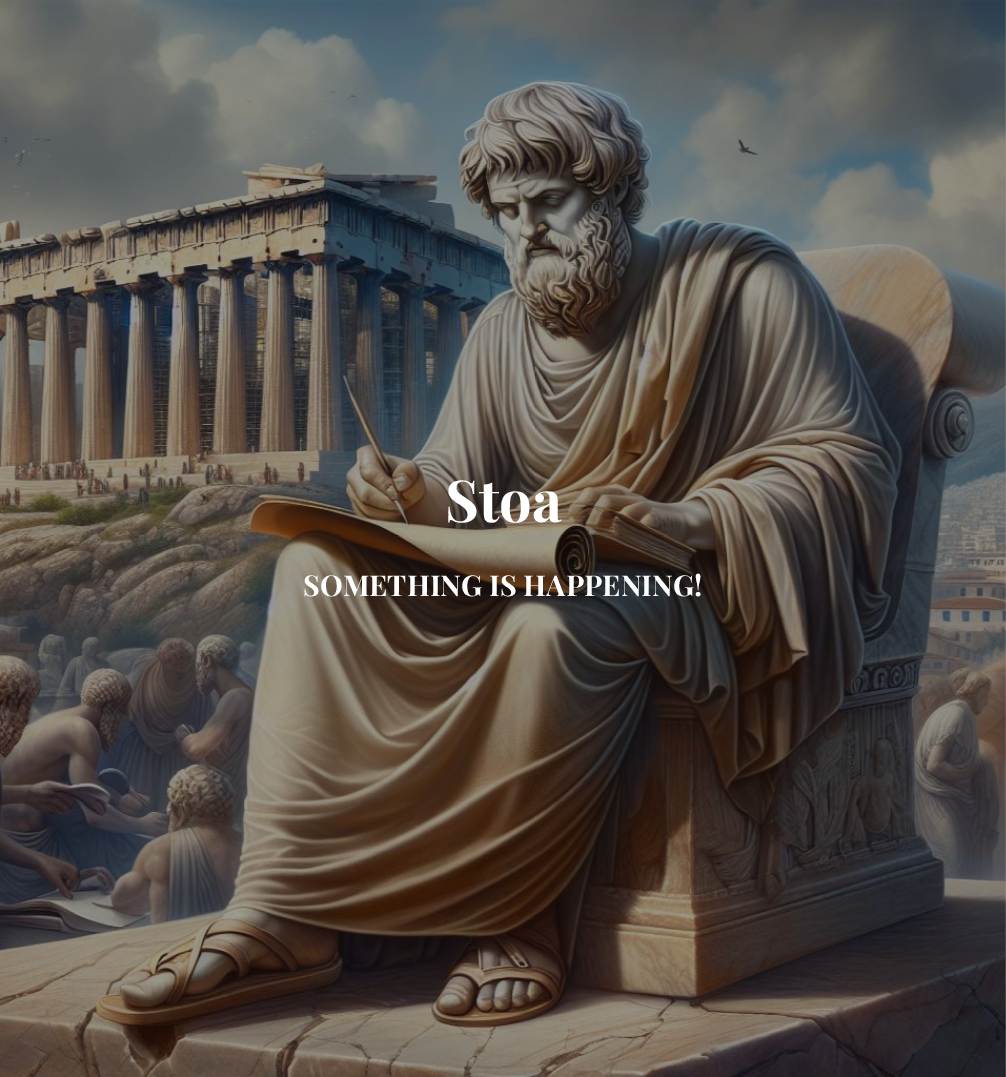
%!PS
<< /PageSize [1006 1077] >> setpagedevice
/rgb { dup -16 bitshift 255 div exch dup -8 bitshift 255 and 255 div exch 255 and 255 div setrgbcolor } def
/font { [ exch dup neg 0 0 3 -1 roll 0 0 ] selectfont } def
/text { moveto show } def
/picture { 5 dict begin { /h /w /y /x /name } { exch def } forall
  gsave x y translate w h scale
  w h 8 [w 0 0 h 0 0] name (r) file false 3 colorimage grestore end } def
0 1077 translate 1 -1 scale
4 setmiterlimit
/s1 { /PlayfairDisplay-Bold 58 font 16#FFFFFF rgb } def
/s2 { /PlayfairDisplay-Bold 28.75 font 16#FFFFFF rgb } def
16#FFFFFF rgb
0 0 1006 1077 rectfill
(pic1.raw) 0 0 1006 1077 picture
s1
(Stoa) 445 522 text
s2
(SOMETHING IS HAPPENING!) 303 596 text
showpage
